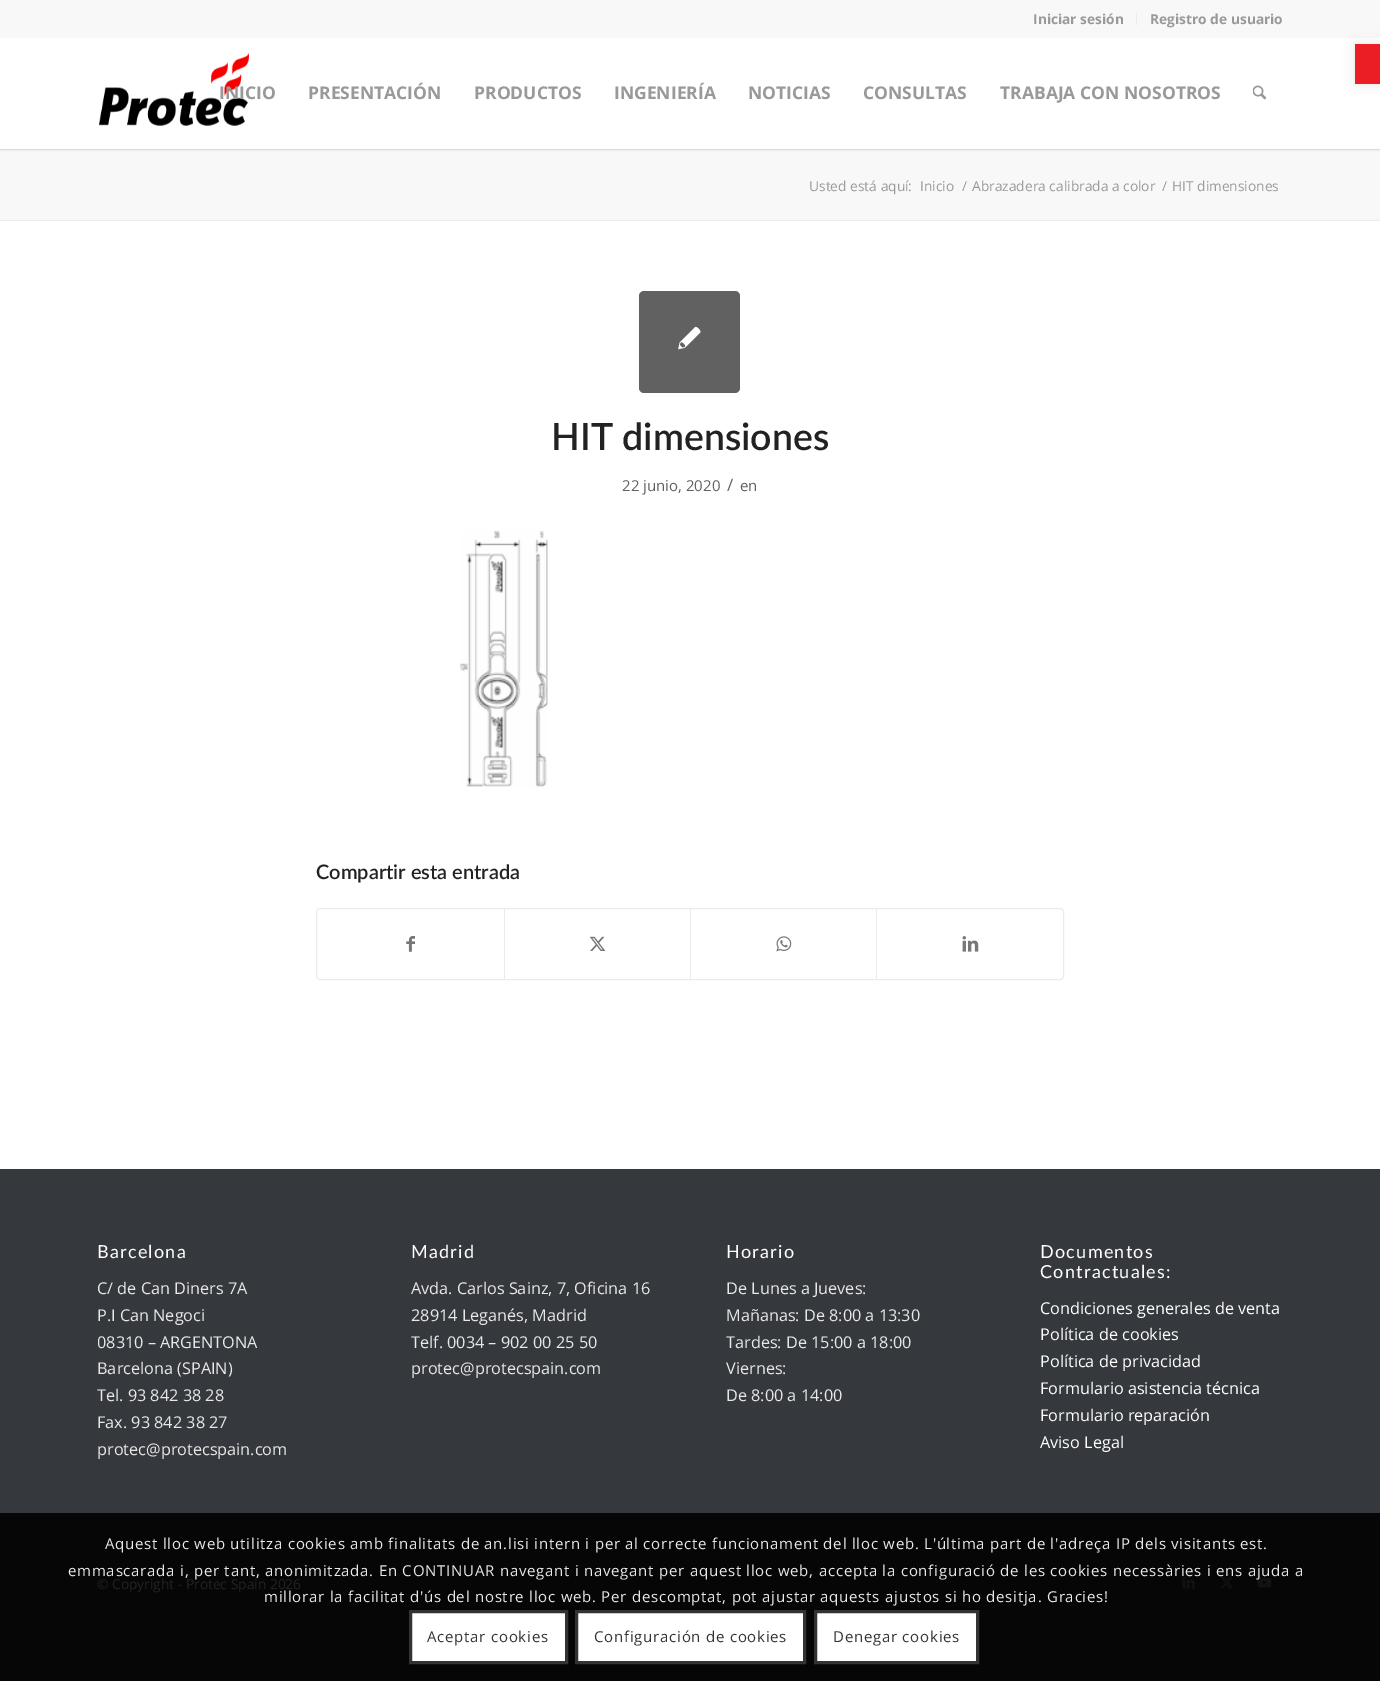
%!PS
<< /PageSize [1380 1681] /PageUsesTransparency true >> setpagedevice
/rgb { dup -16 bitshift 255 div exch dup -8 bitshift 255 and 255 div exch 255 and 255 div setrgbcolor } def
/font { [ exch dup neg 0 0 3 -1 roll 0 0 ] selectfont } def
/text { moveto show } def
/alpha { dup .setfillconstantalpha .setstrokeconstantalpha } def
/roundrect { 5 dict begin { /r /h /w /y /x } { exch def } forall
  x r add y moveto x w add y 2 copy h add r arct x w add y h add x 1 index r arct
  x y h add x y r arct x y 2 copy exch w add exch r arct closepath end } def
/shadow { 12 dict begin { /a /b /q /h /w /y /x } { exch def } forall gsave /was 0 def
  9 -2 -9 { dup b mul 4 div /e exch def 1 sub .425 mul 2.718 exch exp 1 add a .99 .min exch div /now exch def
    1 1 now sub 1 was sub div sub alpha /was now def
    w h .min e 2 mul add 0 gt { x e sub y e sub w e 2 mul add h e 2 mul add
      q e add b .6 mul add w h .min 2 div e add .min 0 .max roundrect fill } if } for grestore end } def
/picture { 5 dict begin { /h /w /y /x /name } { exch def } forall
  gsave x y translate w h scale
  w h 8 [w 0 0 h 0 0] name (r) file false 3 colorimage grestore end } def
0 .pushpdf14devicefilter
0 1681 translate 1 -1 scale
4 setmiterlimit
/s1 { /OpenSans-Bold 13.75 font 16#999999 rgb } def
/s2 { /OpenSans-Bold 17.5 font 16#999999 rgb } def
/s3 { /OpenSans-Regular 13.75 font 16#999999 rgb } def
/s4 { /Lato-SemiBold 37.5 font 16#222222 rgb } def
/s5 { /OpenSans-Regular 15 font 16#616161 rgb } def
/s6 { /OpenSans-Regular 17 font 16#616161 rgb } def
/s7 { /Lato-SemiBold 20 font 16#222222 rgb } def
/s8 { /OpenSans-Regular 16.25 font 16#E8E8E8 rgb } def
/s9 { /OpenSans-Regular 16.25 font 16#FFFFFF rgb } def
/s10 { /OpenSans-Regular 13.75 font 16#222222 rgb } def
16#060607 rgb
0 0 1380 1681 rectfill
16#FFFFFF rgb
0 221 1380 948 rectfill
16#F8F8F8 rgb
0 150 1380 70 rectfill
16#EBEBEB rgb
0 149 1380 1 rectfill
16#000000 rgb
-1 -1 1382 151 0 1 0.1 shadow
16#F8F8F8 rgb
0 0 1380 38 rectfill
16#EBEBEB rgb
1136 13 1 12 rectfill
s1
(Iniciar sesión) 1033 24 text
(Registro de usuario) 1150 24 text
16#FFFFFF rgb
0 38 1380 111 rectfill
(pic1.raw) 99 53 150 73 picture
s2
(INICIO) 219 99 text
(PRESENTACIÓN) 308 99 text
(PRODUCTOS) 474 99 text
(INGENIERÍA) 614 99 text
(NOTICIAS) 748 99 text
(CONSULTAS) 863 99 text
(TRABAJA CON NOSOTROS) 1000 99 text
(pic2.raw) 1253 85 13 15 picture
s3
(Usted está aquí:) 809 191 text
(Inicio) 920 191 text
(/) 962 191 text
(Abrazadera calibrada a color) 972 191 text
(/) 1162 191 text
(HIT dimensiones) 1172 191 text
16#EBEBEB rgb
0 220 1380 1 rectfill
16#616161 rgb
639 291 101 102 5 roundrect fill
(pic3.raw) 678 326 23 24 picture
s4
(HIT dimensiones) 551 450 text
s5
(22 junio, 2020) 622 491 text
s6
(/) 727 491 text
s5
(en) 740 491 text
(pic4.raw) 460 530 88 257 picture
s7
(Compartir esta entrada) 316 879 text
16#EBEBEB rgb
316.5 908.5 747 71 3.5 roundrect stroke
(pic5.raw) 406 936 9 16 picture
504 909 1 70 rectfill
(pic6.raw) 589 936 17 15 picture
690 909 1 70 rectfill
(pic7.raw) 776 936 16 16 picture
876 909 1 70 rectfill
(pic8.raw) 962 936 17 16 picture
16#35383C rgb
0 1169 1380 344 rectfill
/Lato-Regular 18 font
16#FFFFFF rgb
97 1258 moveto 1.25 0 (Barcelona) ashow
s8
(C/ de Can Diners 7A) 97 1294 text
(P.I Can Negoci) 97 1321 text
gsave
98 1226 242 250 rectclip
(08310 – ARGENTONA) 97 1348 text
grestore
(Barcelona \(SPAIN\)) 97 1374 text
(Tel. 93 842 38 28) 97 1401 text
(Fax. 93 842 38 27) 97 1428 text
(protec@protecspain.com) 97 1455 text
/Lato-Regular 18 font
16#FFFFFF rgb
411 1258 moveto 1.25 0 (Madrid) ashow
s8
(Avda. Carlos Sainz, 7, Oficina 16) 411 1294 text
(28914 Leganés, Madrid) 411 1321 text
(Telf. 0034 – 902 00 25 50) 411 1348 text
(protec@protecspain.com) 411 1374 text
/Lato-Regular 18 font
16#FFFFFF rgb
726 1258 moveto 1.25 0 (Horario) ashow
s8
(De Lunes a Jueves:) 726 1294 text
(Mañanas: De 8:00 a 13:30) 726 1321 text
(Tardes: De 15:00 a 18:00) 726 1348 text
(Viernes:) 726 1374 text
(De 8:00 a 14:00) 726 1401 text
/Lato-Regular 18 font
16#FFFFFF rgb
1040 1258 moveto 1.25 0 (Documentos) ashow
1040 1278 moveto 1.25 0 (Contractuales:) ashow
s9
(Condiciones generales de venta) 1040 1314 text
(Política de cookies) 1040 1340 text
(Política de privacidad) 1040 1367 text
(Formulario asistencia técnica) 1040 1394 text
(Formulario reparación) 1040 1421 text
(Aviso Legal) 1040 1448 text
s10
(© Copyright - Protec Spain 2026) 97 1589 text
(pic9.raw) 1182 1576 13 13 picture
(pic10.raw) 1221 1577 12 12 picture
(pic11.raw) 1257 1577 15 11 picture
16#000000 rgb
1355 44 25 40 0 6 0.1 shadow
16#EB1D25 rgb
1355 44 25 40 rectfill
/OpenSans-Regular 15 font
16#E8E8E8 rgb
105 1549 moveto 0.75 0 (Aquest lloc web utilitza cookies amb finalitats de an.lisi intern i per al correcte funcionament del lloc web. L'última part de l'adreça IP dels visitants est.) ashow
68 1576 moveto 0.75 0 (emmascarada i, per tant, anonimitzada. En CONTINUAR navegant i navegant per aquest lloc web, accepta la configuració de les cookies necessàries i ens ajuda a) ashow
264 1602 moveto 0.75 0 (millorar la facilitat d'ús del nostre lloc web. Per descomptat, pot ajustar aquests ajustos si ho desitja. Gracies!) ashow
16#FFFFFF rgb
410.5 1611.5 moveto 566.5 1611.5 lineto 566.5 1662.5 lineto 410.5 1662.5 lineto closepath gsave fill grestore
16#333333 rgb
3 setlinewidth
stroke
427 1642 moveto 0.75 0 (Aceptar cookies) ashow
16#FFFFFF rgb
576.5 1611.5 moveto 804.5 1611.5 lineto 804.5 1662.5 lineto 576.5 1662.5 lineto closepath gsave fill grestore
16#333333 rgb
stroke
594 1642 moveto 0.75 0 (Configuración de cookies) ashow
16#FFFFFF rgb
815.5 1611.5 moveto 977.5 1611.5 lineto 977.5 1662.5 lineto 815.5 1662.5 lineto closepath gsave fill grestore
16#333333 rgb
stroke
833 1642 moveto 0.75 0 (Denegar cookies) ashow
.poppdf14devicefilter showpage
